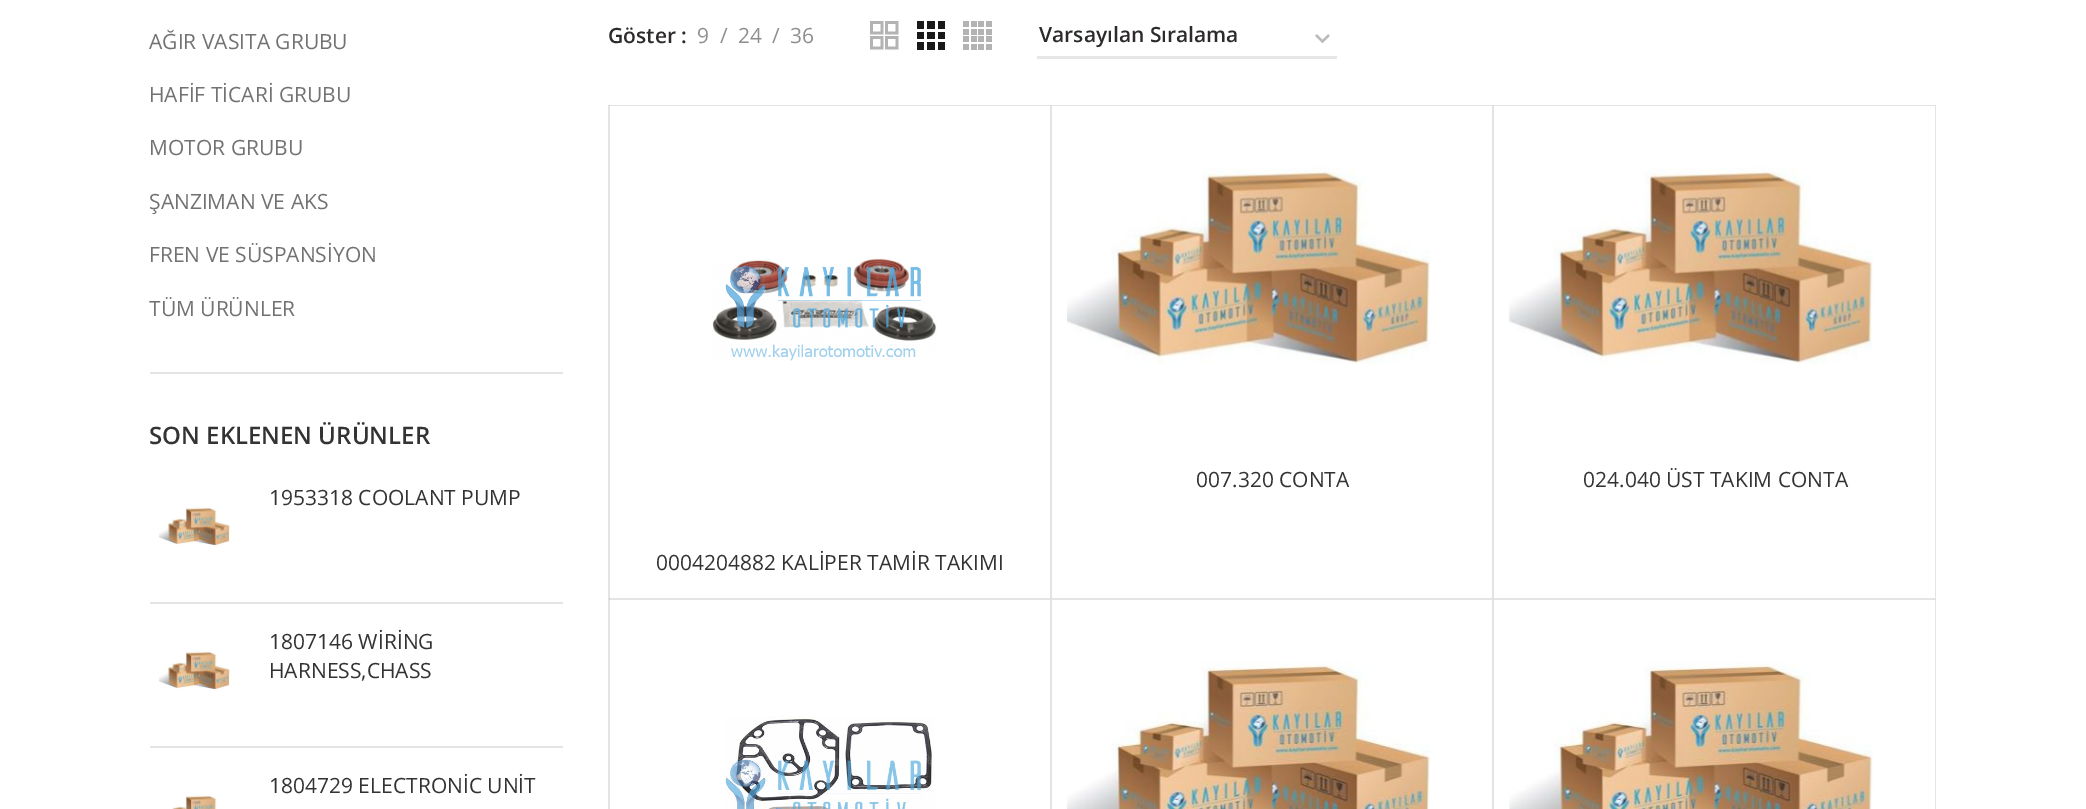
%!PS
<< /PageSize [2086 809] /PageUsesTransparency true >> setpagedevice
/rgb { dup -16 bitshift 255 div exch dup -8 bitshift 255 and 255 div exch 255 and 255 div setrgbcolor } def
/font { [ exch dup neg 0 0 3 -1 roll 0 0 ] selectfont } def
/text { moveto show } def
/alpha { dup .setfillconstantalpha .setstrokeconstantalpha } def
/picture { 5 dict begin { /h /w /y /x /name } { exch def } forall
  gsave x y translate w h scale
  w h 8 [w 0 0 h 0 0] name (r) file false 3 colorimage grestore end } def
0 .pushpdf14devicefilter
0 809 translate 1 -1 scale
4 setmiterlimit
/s1 { /OpenSans-Regular 21 font 16#727272 rgb } def
/s2 { /OpenSans-SemiBold 24 font 16#333333 rgb } def
/s3 { /OpenSans-Regular 21 font 16#333333 rgb } def
/s4 { /OpenSans-SemiBold 21 font 16#2D2A2A rgb } def
/s5 { /OpenSans-Regular 21 font 16#8E8E8E rgb } def
16#FFFFFF rgb
0 0 2086 809 rectfill
16#E4E4E4 rgb
150 372 413 2 rectfill
s1
(AĞIR VASITA GRUBU) 149 49 text
(HAFİF TİCARİ GRUBU) 149 102 text
(MOTOR GRUBU) 149 155 text
(ŞANZIMAN VE AKS) 149 209 text
(FREN VE SÜSPANSİYON) 149 262 text
(TÜM ÜRÜNLER) 149 316 text
s2
(SON EKLENEN ÜRÜNLER) 149 444 text
16#E4E4E4 rgb
150 602 413 2 rectfill
s3
(1953318 COOLANT PUMP) 269 505 text
(pic1.raw) 158 507 72 39 picture
16#E4E4E4 rgb
150 746 413 2 rectfill
(pic1.raw) 158 651 72 39 picture
s3
(1807146 WİRİNG) 269 649 text
(HARNESS,CHASS) 269 678 text
(1804729 ELECTRONİC UNİT) 269 793 text
(pic2.raw) 172 795 45 14 picture
s4
(Göster :) 608 43 text
s5
(9) 697 43 text
(/) 720 43 text
(24) 738 43 text
(/) 772 43 text
(36) 790 43 text
(pic3.raw) 870 21 29 29 picture
(pic4.raw) 917 21 28 29 picture
(pic5.raw) 963 21 29 29 picture
16#BBBBBB rgb
2.2 setlinewidth
1316 35 moveto 1322.5 41.5 lineto 1329 35 lineto stroke
16#E6E6E6 rgb
1037 56 300 3 rectfill
s4
(Varsayılan Sıralama) 1039 42 text
16#E4E4E4 rgb
608 105 2 704 rectfill
1052 105 moveto 1494 105 lineto 1492 106 lineto 1052 106 lineto closepath fill
0.2 alpha
16#777777 rgb
1494 105 moveto 1494 600 lineto 1492 598 lineto 1492 106 lineto closepath fill
1494 600 moveto 1052 600 lineto 1052 598 lineto 1492 598 lineto closepath fill
1 alpha
(pic6.raw) 1067 167 363 199 picture
s3
(007.320 CONTA) 1196 487 text
16#E4E4E4 rgb
1494 105 moveto 1936 105 lineto 1935 106 lineto 1494 106 lineto closepath fill
0.2 alpha
16#777777 rgb
1936 105 moveto 1936 600 lineto 1935 598 lineto 1935 106 lineto closepath fill
1936 600 moveto 1494 600 lineto 1494 598 lineto 1935 598 lineto closepath fill
1 alpha
(pic7.raw) 1508 167 365 199 picture
s3
(024.040 ÜST TAKIM CONTA) 1583 487 text
0.2 alpha
16#777777 rgb
609 105 moveto 1052 105 lineto 1050 106 lineto 609 106 lineto closepath fill
1052 105 moveto 1052 600 lineto 1050 598 lineto 1050 106 lineto closepath fill
1052 600 moveto 609 600 lineto 609 598 lineto 1050 598 lineto closepath fill
1 alpha
(pic8.raw) 712 258 225 103 picture
s3
(0004204882 KALİPER TAMİR TAKIMI) 656 570 text
16#E4E4E4 rgb
1052 600 moveto 1052 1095 lineto 1050 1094 lineto 1050 600 lineto closepath fill
(pic9.raw) 725 716 210 93 picture
1494 600 moveto 1494 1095 lineto 1492 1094 lineto 1492 600 lineto closepath fill
(pic10.raw) 1067 661 363 148 picture
1936 600 moveto 1936 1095 lineto 1935 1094 lineto 1935 600 lineto closepath fill
(pic11.raw) 1509 661 364 148 picture
.poppdf14devicefilter showpage
